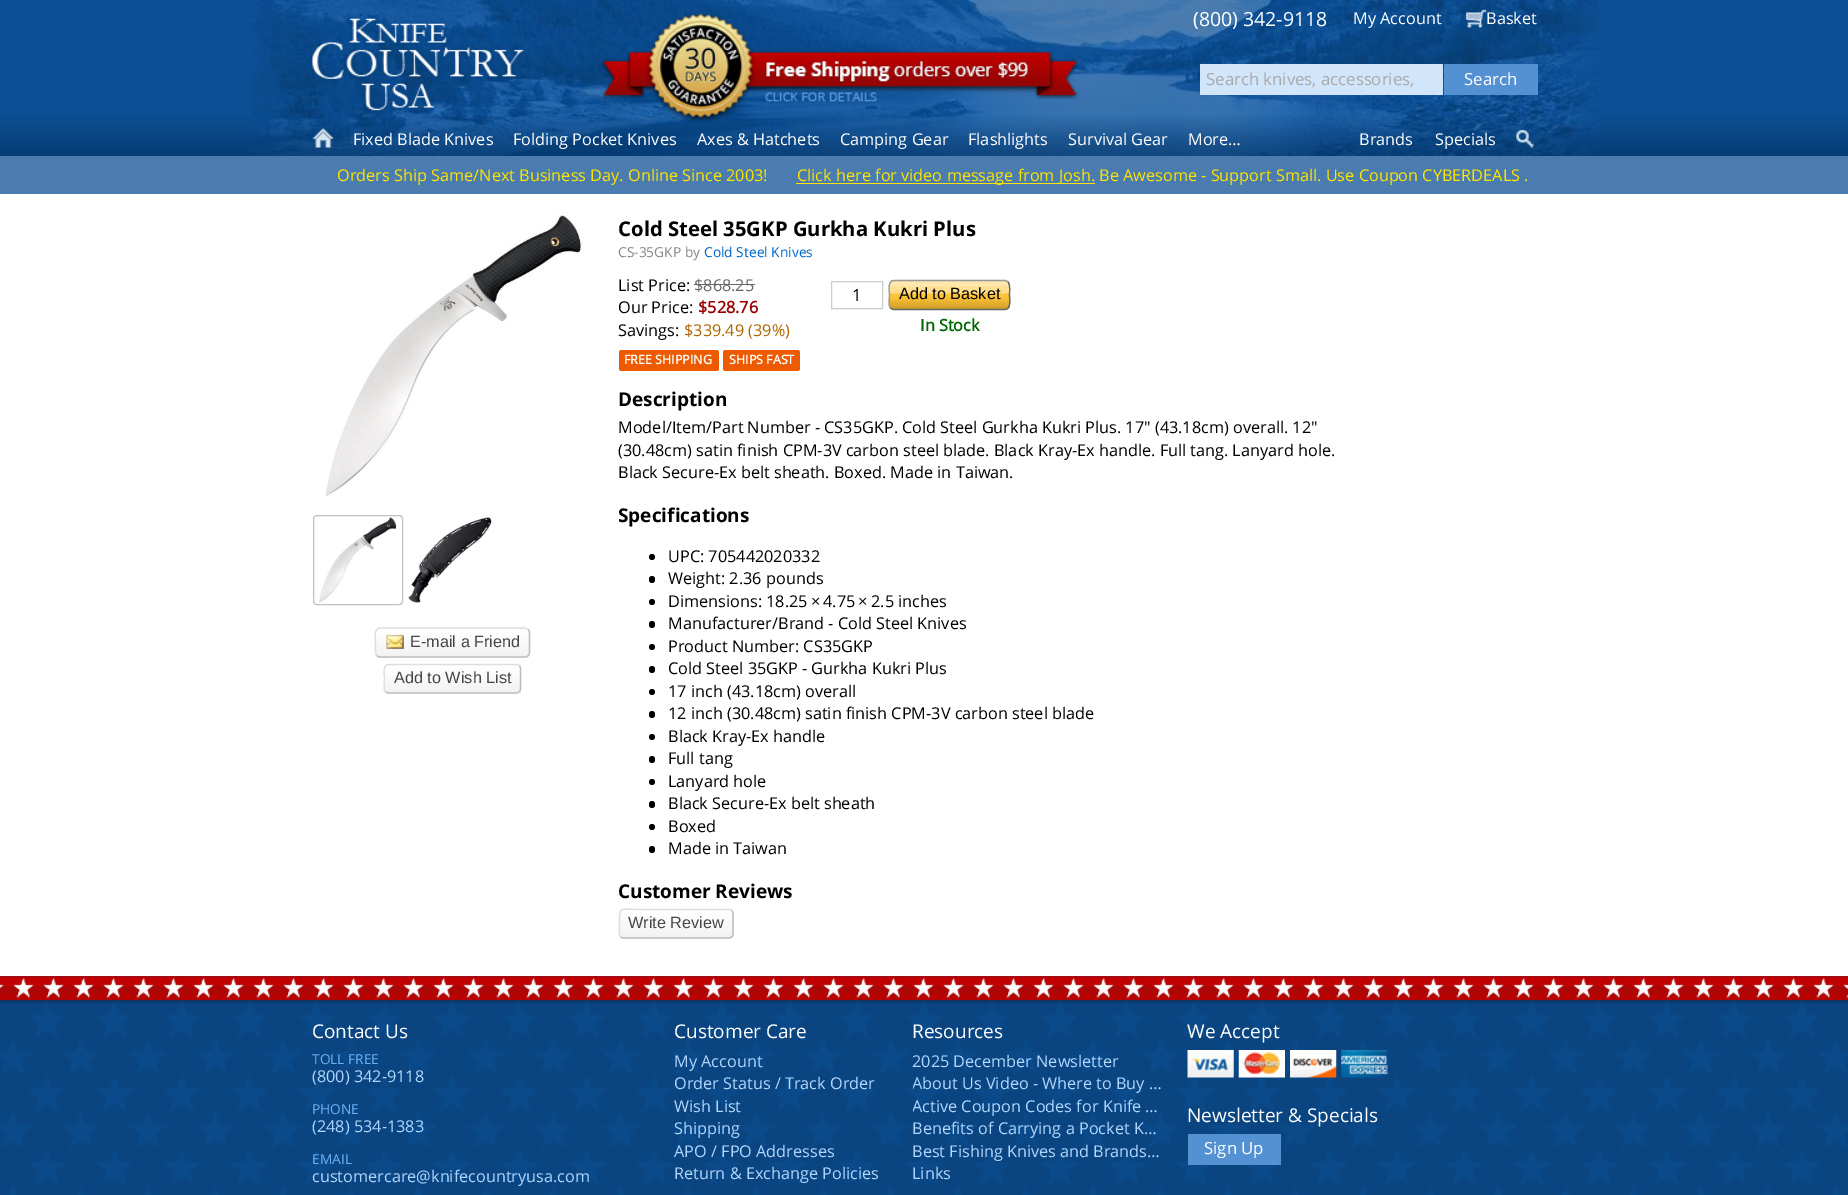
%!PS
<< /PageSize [1848 1195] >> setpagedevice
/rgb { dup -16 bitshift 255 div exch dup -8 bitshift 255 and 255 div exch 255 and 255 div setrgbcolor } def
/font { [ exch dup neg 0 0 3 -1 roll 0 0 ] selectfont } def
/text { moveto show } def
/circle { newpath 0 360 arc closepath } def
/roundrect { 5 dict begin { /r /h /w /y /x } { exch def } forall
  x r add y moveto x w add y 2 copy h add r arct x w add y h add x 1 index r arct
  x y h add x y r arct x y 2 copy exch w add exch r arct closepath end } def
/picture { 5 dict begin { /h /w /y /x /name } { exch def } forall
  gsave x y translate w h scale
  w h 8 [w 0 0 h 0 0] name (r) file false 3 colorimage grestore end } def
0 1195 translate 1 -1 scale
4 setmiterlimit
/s1 { /OpenSans-Regular 19.5 font 16#FFFFFF rgb } def
/s2 { /OpenSans-Regular 16.25 font 16#FFFFFF rgb } def
/s3 { /OpenSans-Regular 16.75 font 16#A9A9A9 rgb } def
/s4 { /OpenSans-Regular 16.75 font 16#FFFFFF rgb } def
/s5 { /OpenSans-Regular 16.25 font 16#FFE400 rgb } def
/s6 { /LiberationSans-Regular 16.25 font 16#464646 rgb } def
/s7 { /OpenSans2-Bold 20.3 font 16#000000 rgb } def
/s8 { /OpenSans-Regular 13.75 font 16#868686 rgb } def
/s9 { /OpenSans-Regular 13.75 font 16#0066CC rgb } def
/s10 { /OpenSans-Regular 16.25 font 16#000000 rgb } def
/s11 { /OpenSans-Regular 16.25 font 16#676767 rgb } def
/s12 { /OpenSans-Bold 16.25 font 16#990000 rgb } def
/s13 { /OpenSans-Regular 16.25 font 16#AE6700 rgb } def
/s14 { /OpenSans-Bold 12.5 font 16#FFFFFF rgb } def
/s15 { /OpenSans-Regular 16.75 font 16#000000 rgb } def
/s16 { /LiberationSans-Regular 16.25 font 16#000000 rgb } def
/s17 { /OpenSans-Bold 16.25 font 16#006600 rgb } def
/s18 { /OpenSans2-Bold 19 font 16#000000 rgb } def
/s19 { /OpenSans-Regular 19 font 16#FFFFFF rgb } def
/s20 { /OpenSans-Regular 13.75 font 16#6CB1F8 rgb } def
/s21 { /OpenSans-Regular 16.25 font 16#B0D7FF rgb } def
16#FFFFFF rgb
0 0 1848 1195 rectfill
16#0C4F94 rgb
0 0 1848 156 rectfill
(pic4.raw) 252 0 1347 156 picture
s1
(\(800\) 342-9118) 1193 26 text
s2
(My Account) 1353 24 text
(pic1.raw) 1466 9 21 19 picture
(Basket) 1486 24 text
(pic5.raw) 0 116 1848 40 picture
(pic2.raw) 312 128 22 20 picture
(Fixed Blade Knives) 353 145 text
(Folding Pocket Knives) 513 145 text
(Axes & Hatchets) 697 145 text
(Camping Gear) 840 145 text
(Flashlights) 968 145 text
(Survival Gear) 1068 145 text
(More…) 1188 145 text
(Brands) 1359 145 text
(Specials) 1435 145 text
(pic3.raw) 1516 130 18 19 picture
(pic6.raw) 310 15 214 97 picture
(pic8.raw) 601 50 478 52 picture
(pic7.raw) 645 13 111 110 picture
16#D2E6FB rgb
1200 64 243 31 rectfill
s3
(Search knives, accessories,) 1206 85 text
16#5391D3 rgb
1444 64 94 31 rectfill
s4
(Search) 1464 85 text
16#4A7CAF rgb
0 156 1848 38 rectfill
s5
(Orders Ship Same/Next Business Day. Online Since 2003!) 337 181 text
796 183 299 1 rectfill
(Click here for video message from Josh. Be Awesome - Support Small. Use Coupon CYBERDEALS .) 797 181 text
(pic9.raw) 325 215 257 281 picture
16#C0C0C0 rgb
313.5 515.5 89 89 3.5 roundrect stroke
(pic10.raw) 319 517 78 86 picture
(pic11.raw) 408 517 84 86 picture
16#EDEDED rgb
375 628 155 30 5 roundrect fill
(pic12.raw) 375 628 155 28 picture
16#BBBBBB rgb
1.2 setlinewidth
528 629.5 moveto 529 630 529.5 631.5 529.5 632.5 curveto 529.5 652.5 lineto 529.5 653.5 529 655 528 655.5 curveto stroke
16#BFBFBF rgb
528 655.5 moveto 527.5 656.5 526 657 525 657 curveto 380 657 lineto 379 657 377.5 656.5 377 655.5 curveto stroke
16#DEDEDE rgb
377 655.5 moveto 374.5 653 375.5 645.5 375.5 642.5 curveto 375.5 639 373.5 628 380 628 curveto 525 628 lineto 528 629.5 lineto stroke
(pic13.raw) 386 634 18 15 picture
s6
(E-mail a Friend) 410 647 text
16#EDEDED rgb
384 664 137 30 5 roundrect fill
(pic14.raw) 384 665 137 28 picture
16#BBBBBB rgb
519.5 665.5 moveto 520 666.5 520.5 667.5 520.5 669 curveto 520.5 689 lineto 520.5 690 520 691 519.5 692 curveto stroke
16#BFBFBF rgb
519.5 692 moveto 516 693 lineto 388.5 693 lineto 385.5 692 lineto stroke
16#DEDEDE rgb
385.5 692 moveto 383 689.5 384.5 682 384.5 679 curveto 384.5 675 382 664.5 389 664.5 curveto 517 664.5 lineto 519.5 665.5 lineto stroke
s6
(Add to Wish List) 394 683 text
s7
(Cold Steel 35GKP Gurkha Kukri Plus) 618 236 text
s8
(CS-35GKP by) 618 257 text
s9
(Cold Steel Knives) 704 257 text
s10
(List Price:) 618 291 text
s11
($868.25) 694 291 text
694 284 61 1 rectfill
s10
(Our Price:) 618 313 text
s12
($528.76) 698 313 text
s10
(Savings:) 618 336 text
s13
($339.49 \(39%\)) 684 336 text
16#ED5A00 rgb
619 350 100 21 2.5 roundrect fill
s14
(FREE SHIPPING) 624 364 text
16#ED5A00 rgb
723 350 77 21 2.5 roundrect fill
s14
(SHIPS FAST) 729 364 text
16#CCCCCC rgb
1 setlinewidth
831.5 281.5 51 27 rectstroke
s15
(1) 852 301 text
(pic15.raw) 888 280 122 30 picture
16#676767 rgb
1.2 setlinewidth
1008 282 moveto 1010.5 284.5 1009.5 292 1009.5 295 curveto 1009.5 298.5 1011.5 309.5 1005 309.5 curveto 893.5 309.5 lineto 890.5 308 lineto stroke
16#999999 rgb
890.5 308 moveto 888 305.5 889.5 298 889.5 295 curveto 889.5 291.5 887 280.5 894 280.5 curveto 1005.5 280.5 lineto 1008 282 lineto stroke
s16
(Add to Basket) 899 299 text
s17
(In Stock) 920 331 text
s18
(Description) 618 406 text
s10
(Model/Item/Part Number - CS35GKP. Cold Steel Gurkha Kukri Plus. 17" \(43.18cm\) overall. 12") 618 433 text
(\(30.48cm\) satin finish CPM-3V carbon steel blade. Black Kray-Ex handle. Full tang. Lanyard hole.) 618 456 text
(Black Secure-Ex belt sheath. Boxed. Made in Taiwan.) 618 478 text
s18
(Specifications) 618 522 text
652 557 3 circle fill
s10
(UPC: 705442020332) 668 562 text
649 576 6 7 3 roundrect fill
(Weight: 2.36 pounds) 668 584 text
652 602 3 circle fill
(Dimensions: 18.25) 668 607 text
(×) 811 607 text
(4.75) 823 607 text
(×) 858 607 text
(2.5 inches) 871 607 text
649 621 6 7 3 roundrect fill
(Manufacturer/Brand - Cold Steel Knives) 668 629 text
652 647 3 circle fill
(Product Number: CS35GKP) 668 652 text
649 666 6 7 3 roundrect fill
(Cold Steel 35GKP - Gurkha Kukri Plus) 668 674 text
652 692 3 circle fill
(17 inch \(43.18cm\) overall) 668 697 text
649 711 6 7 3 roundrect fill
(12 inch \(30.48cm\) satin finish CPM-3V carbon steel blade) 668 719 text
652 737 3 circle fill
(Black Kray-Ex handle) 668 742 text
649 756 6 7 3 roundrect fill
(Full tang) 668 764 text
652 782 3 circle fill
(Lanyard hole) 668 787 text
649 801 6 7 3 roundrect fill
(Black Secure-Ex belt sheath) 668 809 text
652 827 3 circle fill
(Boxed) 668 832 text
649 846 6 7 3 roundrect fill
(Made in Taiwan) 668 854 text
s18
(Customer Reviews) 618 898 text
16#EDEDED rgb
619 909 115 30 5 roundrect fill
(pic16.raw) 619 910 115 28 picture
16#BBBBBB rgb
732 910.5 moveto 732.5 911.5 733 912.5 733 914 curveto 733 934 lineto 733 935 732.5 936 732 937 curveto stroke
16#BFBFBF rgb
732 937 moveto 729 938 lineto 623.5 938 lineto 620.5 937 lineto stroke
16#DEDEDE rgb
620.5 937 moveto 618 934.5 619.5 927 619.5 924 curveto 619.5 905 619 909.5 641 909.5 curveto 729 909.5 lineto 732 910.5 lineto stroke
s6
(Write Review) 628 928 text
(pic17.raw) 0 976 1848 219 picture
(pic18.raw) 0 976 1848 28 picture
s19
(Contact Us) 312 1038 text
s20
(TOLL FREE) 312 1064 text
s21
(\(800\) 342-9118) 312 1082 text
s20
(PHONE) 312 1114 text
s21
(\(248\) 534-1383) 312 1132 text
s20
(EMAIL) 312 1164 text
s21
(customercare@knifecountryusa.com) 312 1182 text
s19
(Customer Care) 674 1038 text
s21
(My Account) 674 1067 text
(Order Status / Track Order) 674 1089 text
(Wish List) 674 1112 text
(Shipping) 674 1134 text
(APO / FPO Addresses) 674 1157 text
(Return & Exchange Policies) 674 1179 text
s19
(Resources) 912 1038 text
s21
(2025 December Newsletter) 912 1067 text
gsave
913 1073 250 22 rectclip
(About Us Video - Where to Buy …) 912 1089 text
grestore
gsave
913 1095 250 23 rectclip
(Active Coupon Codes for Knife …) 912 1112 text
grestore
(Benefits of Carrying a Pocket K…) 912 1134 text
(Best Fishing Knives and Brands…) 912 1157 text
(Links) 912 1179 text
s19
(We Accept) 1187 1038 text
(pic19.raw) 1187 1050 47 28 picture
(pic20.raw) 1238 1050 47 28 picture
(pic21.raw) 1290 1050 47 28 picture
(pic22.raw) 1341 1050 47 28 picture
(Newsletter & Specials) 1187 1122 text
16#5391D3 rgb
1188 1134 93 31 rectfill
s4
(Sign Up) 1204 1154 text
showpage
